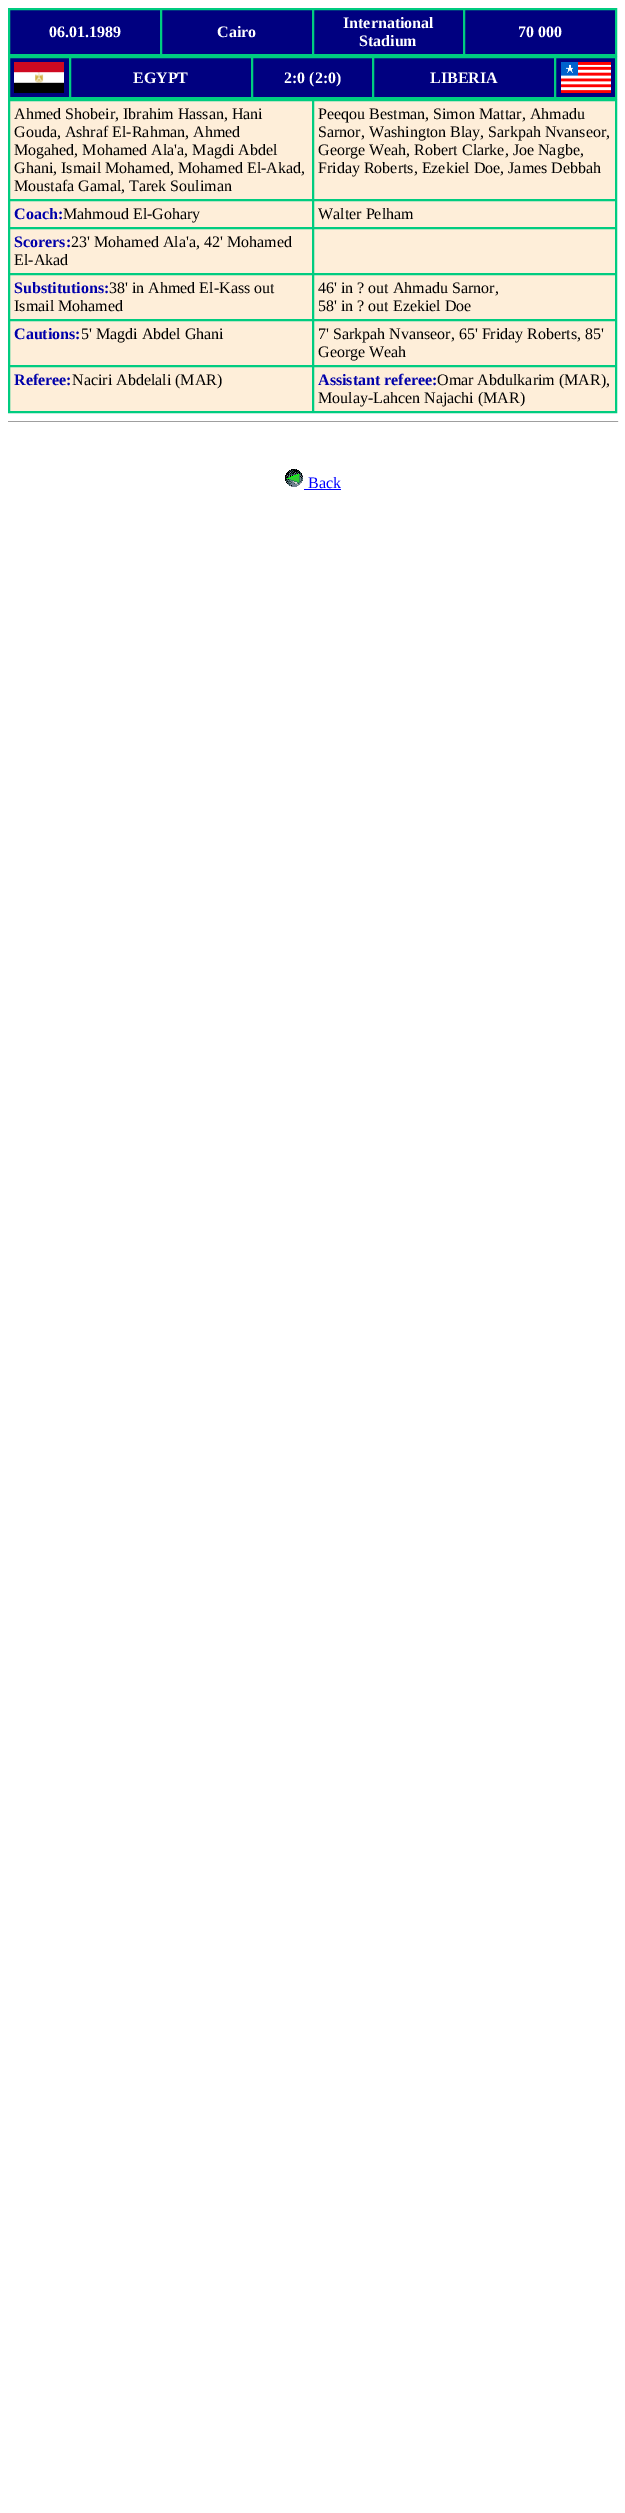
%!PS
<< /PageSize [625 2513] >> setpagedevice
/rgb { dup -16 bitshift 255 div exch dup -8 bitshift 255 and 255 div exch 255 and 255 div setrgbcolor } def
/font { [ exch dup neg 0 0 3 -1 roll 0 0 ] selectfont } def
/text { moveto show } def
/picture { 5 dict begin { /h /w /y /x /name } { exch def } forall
  gsave x y translate w h scale
  w h 8 [w 0 0 h 0 0] name (r) file false 3 colorimage grestore end } def
0 2513 translate 1 -1 scale
4 setmiterlimit
/s1 { /LiberationSerif-Bold 16 font 16#FFFFFF rgb } def
/s2 { /LiberationSerif-Regular 16 font 16#000000 rgb } def
/s3 { /LiberationSerif-Bold 16 font 16#0000AA rgb } def
/s4 { /LiberationSerif-Regular 16 font 16#0000FF rgb } def
16#FFFFFF rgb
0 0 625 2513 rectfill
16#000080 rgb
10 10 605 44 rectfill
16#00CC80 rgb
8.5 8.5 608 47 rectstroke
9.5 9.5 151 45 rectstroke
s1
(06.01.1989) 49 37 text
16#00CC80 rgb
161.5 9.5 151 45 rectstroke
s1
(Cairo) 217 37 text
16#00CC80 rgb
313.5 9.5 150 45 rectstroke
s1
(International) 343 28 text
(Stadium) 359 46 text
16#00CC80 rgb
464.5 9.5 151 45 rectstroke
s1
(70 000) 518 37 text
16#000080 rgb
10 58 605 39 rectfill
16#00CC80 rgb
8.5 56.5 608 42 rectstroke
9.5 57.5 60 40 rectstroke
(pic1.raw) 14 62 50 31 picture
70.5 57.5 181 40 rectstroke
s1
(EGYPT) 133 83 text
16#00CC80 rgb
252.5 57.5 120 40 rectstroke
s1
(2:0 \(2:0\)) 284 83 text
16#00CC80 rgb
373.5 57.5 181 40 rectstroke
s1
(LIBERIA) 430 83 text
16#00CC80 rgb
555.5 57.5 60 40 rectstroke
(pic2.raw) 561 62 50 31 picture
16#FEEED9 rgb
10 101 605 310 rectfill
16#00CC80 rgb
8.5 99.5 608 313 rectstroke
9.5 100.5 303 99 rectstroke
s2
(Ahmed Shobeir, Ibrahim Hassan, Hani) 14 119 text
(Gouda, Ashraf El-Rahman, Ahmed) 14 137 text
(Mogahed, Mohamed Ala'a, Magdi Abdel) 14 155 text
(Ghani, Ismail Mohamed, Mohamed El-Akad,) 14 173 text
(Moustafa Gamal, Tarek Souliman) 14 191 text
16#00CC80 rgb
313.5 100.5 302 99 rectstroke
s2
(Peeqou Bestman, Simon Mattar, Ahmadu) 318 119 text
(Sarnor, Washington Blay, Sarkpah Nvanseor,) 318 137 text
(George Weah, Robert Clarke, Joe Nagbe,) 318 155 text
(Friday Roberts, Ezekiel Doe, James Debbah) 318 173 text
16#00CC80 rgb
9.5 200.5 303 27 rectstroke
s3
(Coach:) 14 219 text
s2
(Mahmoud El-Gohary) 63 219 text
16#00CC80 rgb
313.5 200.5 302 27 rectstroke
s2
(Walter Pelham) 318 219 text
16#00CC80 rgb
9.5 228.5 303 45 rectstroke
s3
(Scorers:) 14 247 text
s2
(23' Mohamed Ala'a, 42' Mohamed) 71 247 text
(El-Akad) 14 265 text
16#00CC80 rgb
313.5 228.5 302 45 rectstroke
9.5 274.5 303 45 rectstroke
s3
(Substitutions:) 14 293 text
s2
(38' in Ahmed El-Kass out) 109 293 text
(Ismail Mohamed) 14 311 text
16#00CC80 rgb
313.5 274.5 302 45 rectstroke
s2
(46' in ? out Ahmadu Sarnor,) 318 293 text
(58' in ? out Ezekiel Doe) 318 311 text
16#00CC80 rgb
9.5 320.5 303 45 rectstroke
s3
(Cautions:) 14 339 text
s2
(5' Magdi Abdel Ghani) 81 339 text
16#00CC80 rgb
313.5 320.5 302 45 rectstroke
s2
(7' Sarkpah Nvanseor, 65' Friday Roberts, 85') 318 339 text
(George Weah) 318 357 text
16#00CC80 rgb
9.5 366.5 303 45 rectstroke
s3
(Referee:) 14 385 text
s2
(Naciri Abdelali \(MAR\)) 72 385 text
16#00CC80 rgb
313.5 366.5 302 45 rectstroke
s3
(Assistant referee:) 318 385 text
s2
(Omar Abdulkarim \(MAR\),) 437 385 text
(Moulay-Lahcen Najachi \(MAR\)) 318 403 text
16#9F9F9F rgb
8 421 611 1 rectfill
16#EEEEEE rgb
618 421 1 1 rectfill
(pic3.raw) 285 469 18 18 picture
s4
(Back) 308 488 text
304 489 37 1 rectfill
showpage
